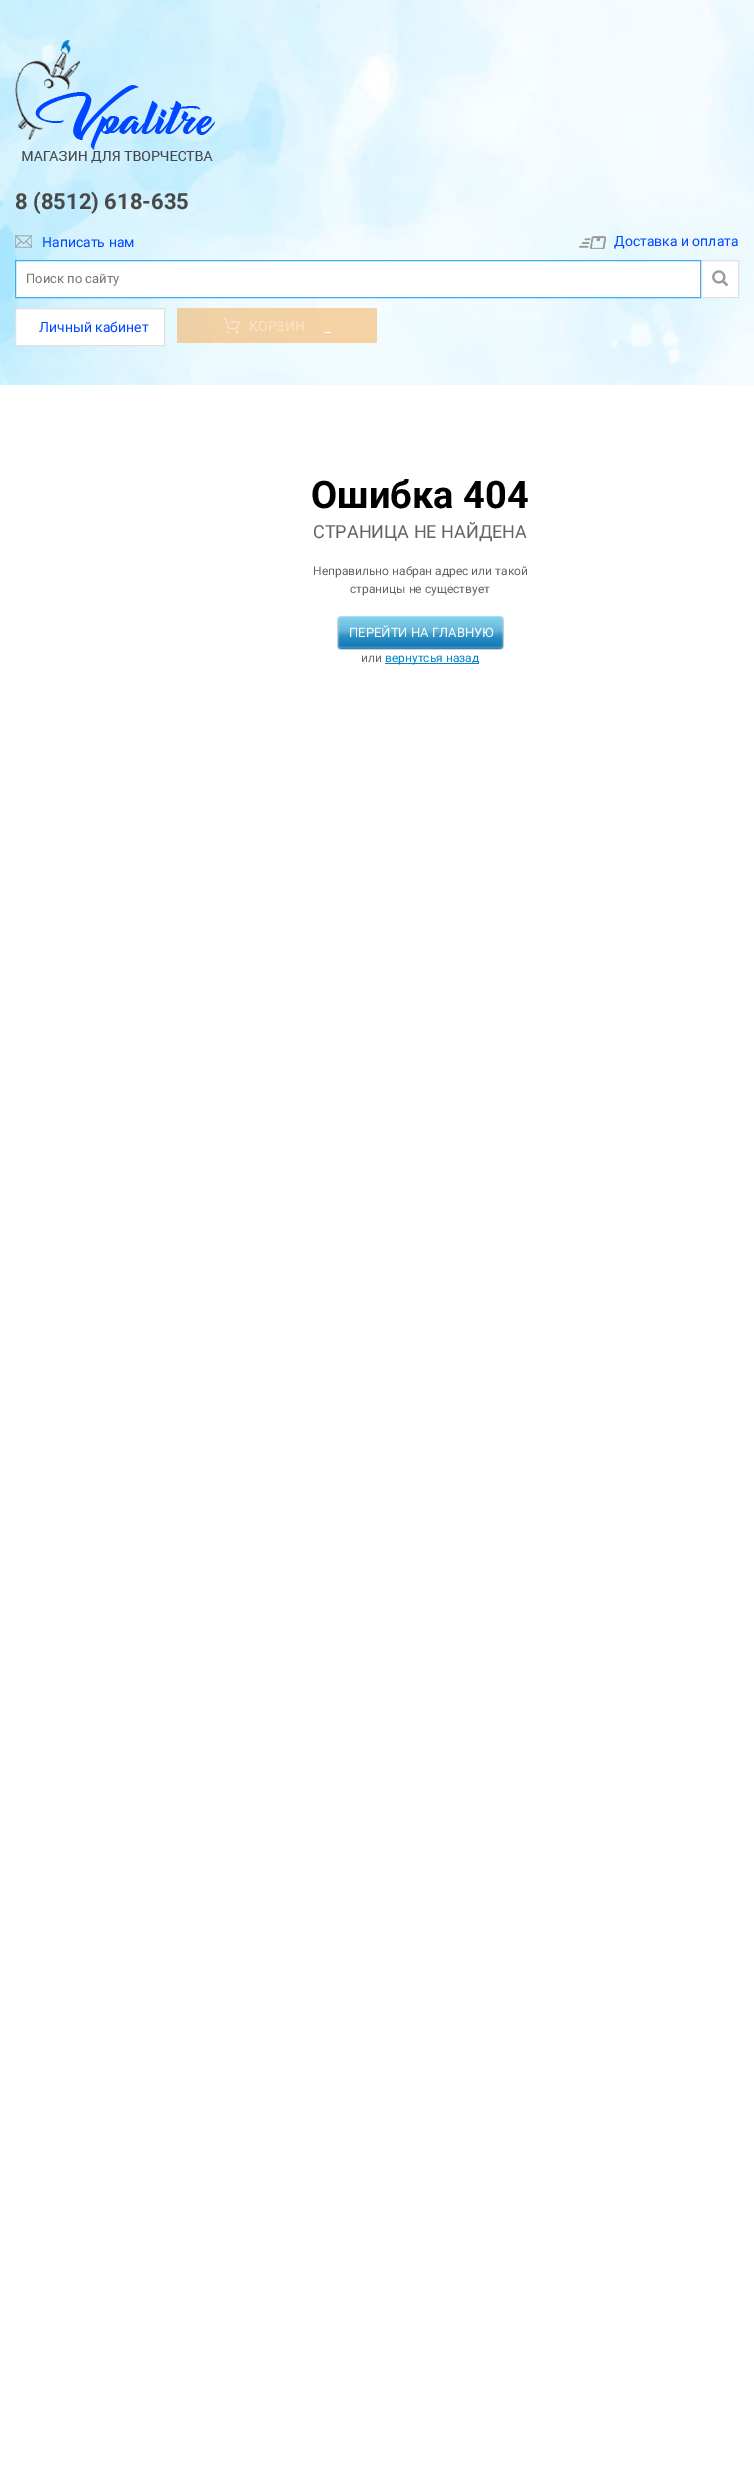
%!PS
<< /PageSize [754 2475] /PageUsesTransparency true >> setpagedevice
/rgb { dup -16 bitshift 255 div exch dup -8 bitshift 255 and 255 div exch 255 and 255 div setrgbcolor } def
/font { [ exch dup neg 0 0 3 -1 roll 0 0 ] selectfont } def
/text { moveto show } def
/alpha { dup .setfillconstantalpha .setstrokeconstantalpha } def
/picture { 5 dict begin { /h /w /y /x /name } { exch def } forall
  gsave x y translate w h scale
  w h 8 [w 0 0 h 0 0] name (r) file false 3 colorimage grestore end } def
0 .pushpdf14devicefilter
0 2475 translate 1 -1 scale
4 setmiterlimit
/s1 { /Roboto-Bold 22 font 16#484848 rgb } def
/s2 { /Roboto-Regular 14 font 16#0048FF rgb } def
/s3 { /Roboto-Regular 13 font 16#757575 rgb } def
/s4 { /Roboto-Regular 14 font 16#F7E4C9 rgb } def
/s5 { /Roboto-Bold 38 font 16#000000 rgb } def
/s6 { /Roboto-Regular 18 font 16#636363 rgb } def
/s7 { /Roboto-Regular 12 font 16#636363 rgb } def
/s8 { /Roboto-Regular 13 font 16#FFFFFF rgb } def
/s9 { /Roboto-Regular 12 font 16#0086CB rgb } def
16#FFFFFF rgb
0 0 754 2475 rectfill
(pic1.raw) 0 0 754 385 picture
(pic2.raw) 15 40 200 123 picture
s1
(8 \(8512\) 618-635) 15 209 text
(pic3.raw) 15 235 17 13 picture
s2
(Написать нам) 42 247 text
(pic4.raw) 579 236 27 13 picture
(Доставка и оплата) 614 246 text
16#FFFFFF rgb
15.5 260.5 moveto 700.5 260.5 lineto 700.5 297.5 lineto 15.5 297.5 lineto closepath gsave fill grestore
16#3BACF3 rgb
stroke
s3
(Поиск по сайту) 26 283 text
16#FFFFFF rgb
701.5 260.5 moveto 738.5 260.5 lineto 738.5 297.5 lineto 701.5 297.5 lineto closepath gsave fill grestore
16#E0E0E0 rgb
stroke
(pic5.raw) 712 270 17 17 picture
16#FFFFFF rgb
15.5 308.5 moveto 164.5 308.5 lineto 164.5 345.5 lineto 15.5 345.5 lineto closepath gsave fill grestore
16#E0E0E0 rgb
stroke
s2
(Личный кабинет) 39 332 text
0.4 alpha
16#F7931E rgb
177 308 200 35 rectfill
1 alpha
(pic6.raw) 223 318 17 15 picture
s4
(КОРЗИН) 249 331 text
16#F7FCFF rgb
324 332 7 1 rectfill
s5
(Ошибка 404) 311 508 text
s6
(СТРАНИЦА НЕ НАЙДЕНА) 313 538 text
s7
(Неправильно набран адрес или такой) 313 575 text
(страницы не существует) 350 593 text
(pic7.raw) 337 616 13 34 picture
(pic8.raw) 349 616 155 34 picture
s8
(ПЕРЕЙТИ НА ГЛАВНУЮ) 349 637 text
s7
(или) 361 662 text
16#0086CB rgb
385 663 94 1 rectfill
(вернутсья назад) 385 662 text
.poppdf14devicefilter showpage
